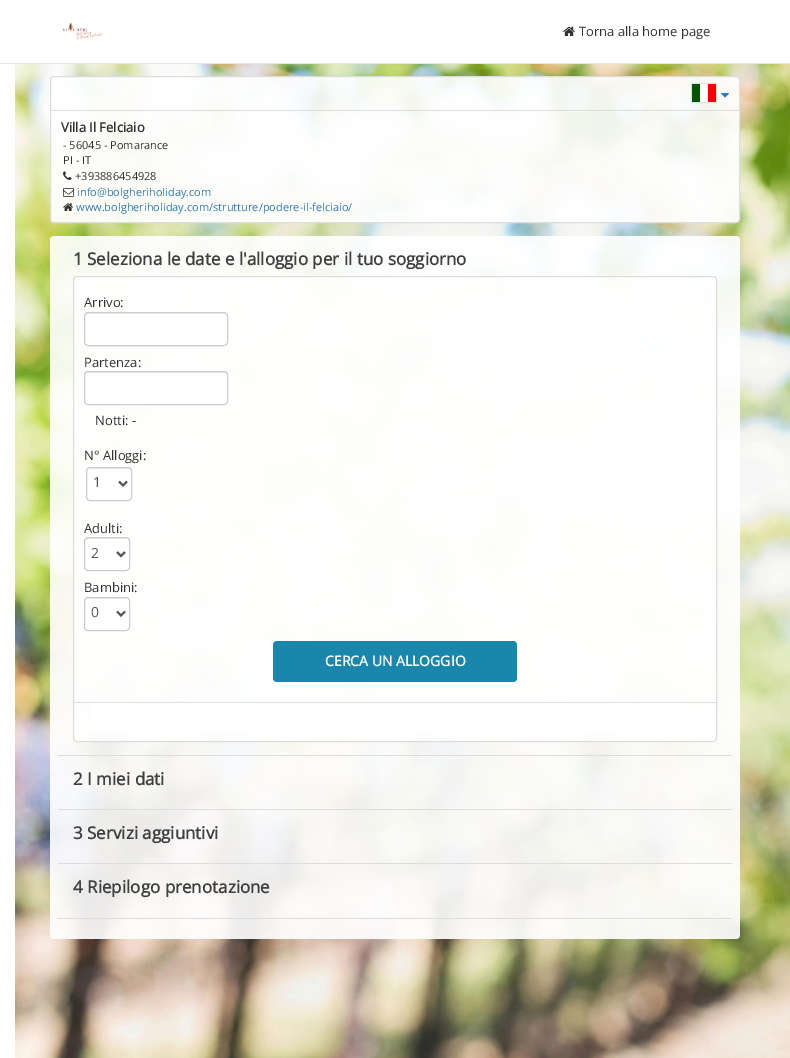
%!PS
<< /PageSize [790 1058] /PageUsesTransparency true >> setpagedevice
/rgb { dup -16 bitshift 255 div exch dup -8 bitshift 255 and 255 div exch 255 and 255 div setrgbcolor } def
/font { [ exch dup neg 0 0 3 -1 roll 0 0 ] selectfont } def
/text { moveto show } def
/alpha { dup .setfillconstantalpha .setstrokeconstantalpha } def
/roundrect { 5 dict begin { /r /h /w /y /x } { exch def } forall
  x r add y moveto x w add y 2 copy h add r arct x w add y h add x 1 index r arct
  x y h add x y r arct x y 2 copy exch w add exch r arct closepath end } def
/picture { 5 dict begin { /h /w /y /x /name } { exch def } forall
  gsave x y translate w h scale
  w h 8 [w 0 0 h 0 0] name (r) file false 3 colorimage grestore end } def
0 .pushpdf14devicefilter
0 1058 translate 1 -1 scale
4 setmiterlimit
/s1 { /OpenSans-Regular 13 font 16#333333 rgb } def
/s2 { /OpenSans-Bold 13 font 16#333333 rgb } def
/s3 { /OpenSans-Regular 11 font 16#333333 rgb } def
/s4 { /OpenSans-Regular 11 font 16#337AB7 rgb } def
/s5 { /OpenSans-Bold 17 font 16#404040 rgb } def
/s6 { /OpenSans-Regular 14 font 16#555555 rgb } def
/s7 { /OpenSans-Bold 14 font 16#FFFFFF rgb } def
16#FFFFFF rgb
0 0 790 1058 rectfill
16#E7E7E7 rgb
0 63 790 1 rectfill
(pic1.raw) 63 22 40 18 picture
(pic2.raw) 563 26 12 10 picture
s1
(Torna alla home page) 579 36 text
(pic3.raw) 15 64 775 994 picture
0.91 alpha
16#FFFFFF rgb
50.5 76.5 689 146 3.5 roundrect fill
1 alpha
16#DDDDDD rgb
50.5 76.5 689 146 3.5 roundrect stroke
16#E0E0E0 rgb
691.5 83.5 25 19 rectstroke
16#005700 rgb
692 84 8 18 rectfill
16#FFFFFF rgb
700 84 8 18 rectfill
16#FC0000 rgb
708 84 8 18 rectfill
(pic4.raw) 721 93 8 5 picture
16#DDDDDD rgb
51 110 688 1 rectfill
s2
(Villa Il Felciaio) 61 132 text
s3
(- 56045 - Pomarance) 63 149 text
(PI - IT) 63 164 text
(pic5.raw) 63 171 9 9 picture
(+393886454928) 75 180 text
(pic6.raw) 63 188 11 9 picture
s4
(info@bolgheriholiday.com) 77 196 text
(pic7.raw) 63 203 10 8 picture
(www.bolgheriholiday.com/strutture/podere-il-felciaio/) 76 211 text
0.91 alpha
16#FFFFFF rgb
50 236 690 703 4 roundrect fill
1 alpha
s5
(1 Seleziona le date e l'alloggio per il tuo soggiorno) 73 265 text
0.82 alpha
16#FFFFFF rgb
73.5 276.5 643 465 3.5 roundrect fill
1 alpha
16#DDDDDD rgb
73.5 276.5 643 465 3.5 roundrect stroke
s1
(Arrivo:) 84 307 text
16#FFFFFF rgb
84 312 144 34 4 roundrect fill
16#ECECEC rgb
88 314 moveto 224 314 lineto 226 314 227 315 227 317 curveto 227 316 lineto 227 314 226 313 224 313 curveto 88 313 lineto 86 313 85 314 85 316 curveto 85 317 lineto 85 315 86 314 88 314 curveto closepath fill
16#CCCCCC rgb
84.5 312.5 143 33 3.5 roundrect stroke
s1
(Partenza:) 84 367 text
16#FFFFFF rgb
84 371 144 34 4 roundrect fill
16#ECECEC rgb
88 373 moveto 224 373 lineto 226 373 227 374 227 376 curveto 227 375 lineto 227 373 226 372 224 372 curveto 88 372 lineto 86 372 85 373 85 375 curveto 85 376 lineto 85 374 86 373 88 373 curveto closepath fill
16#CCCCCC rgb
84.5 371.5 143 33 3.5 roundrect stroke
s1
(Notti: -) 95 425 text
(N° Alloggi:) 84 460 text
16#FFFFFF rgb
86 467 46 34 4 roundrect fill
16#ECECEC rgb
90 469 moveto 128 469 lineto 130 469 131 470 131 472 curveto 131 467 126 468 122 468 curveto 96 468 lineto 92 468 87 467 87 472 curveto 87 470 88 469 90 469 curveto closepath fill
16#CCCCCC rgb
86.5 467.5 45 33 3.5 roundrect stroke
16#555555 rgb
2 setlinewidth
119 481.5 moveto 123 485.5 lineto 127 481.5 lineto stroke
s6
(1) 93 487 text
s1
(Adulti:) 84 533 text
16#FFFFFF rgb
84 537 46 34 4 roundrect fill
16#ECECEC rgb
88 539 moveto 126 539 lineto 128 539 129 540 129 542 curveto 129 537 124 538 120 538 curveto 94 538 lineto 90 538 85 537 85 542 curveto 85 540 86 539 88 539 curveto closepath fill
16#CCCCCC rgb
1 setlinewidth
84.5 537.5 45 33 3.5 roundrect stroke
16#555555 rgb
2 setlinewidth
117 552 moveto 121 556 lineto 125 552 lineto stroke
s6
(2) 91 558 text
s1
(Bambini:) 84 592 text
16#FFFFFF rgb
84 597 46 34 4 roundrect fill
16#ECECEC rgb
88 599 moveto 126 599 lineto 128 599 129 600 129 602 curveto 129 597 124 598 120 598 curveto 94 598 lineto 90 598 85 597 85 602 curveto 85 600 86 599 88 599 curveto closepath fill
16#CCCCCC rgb
1 setlinewidth
84.5 597.5 45 33 3.5 roundrect stroke
16#555555 rgb
2 setlinewidth
117 611.5 moveto 121 615.5 lineto 125 611.5 lineto stroke
s6
(0) 91 617 text
16#1987AC rgb
273 641 244 41 4 roundrect fill
s7
(CERCA UN ALLOGGIO) 325 666 text
91 703 595 28 rectfill
16#DDDDDD rgb
74 702 642 1 rectfill
58 755 674 1 rectfill
s5
(2 I miei dati) 73 785 text
16#DDDDDD rgb
58 809 674 1 rectfill
s5
(3 Servizi aggiuntivi) 73 839 text
16#DDDDDD rgb
58 863 674 1 rectfill
s5
(4 Riepilogo prenotazione) 73 893 text
16#DDDDDD rgb
58 918 674 1 rectfill
.poppdf14devicefilter showpage
